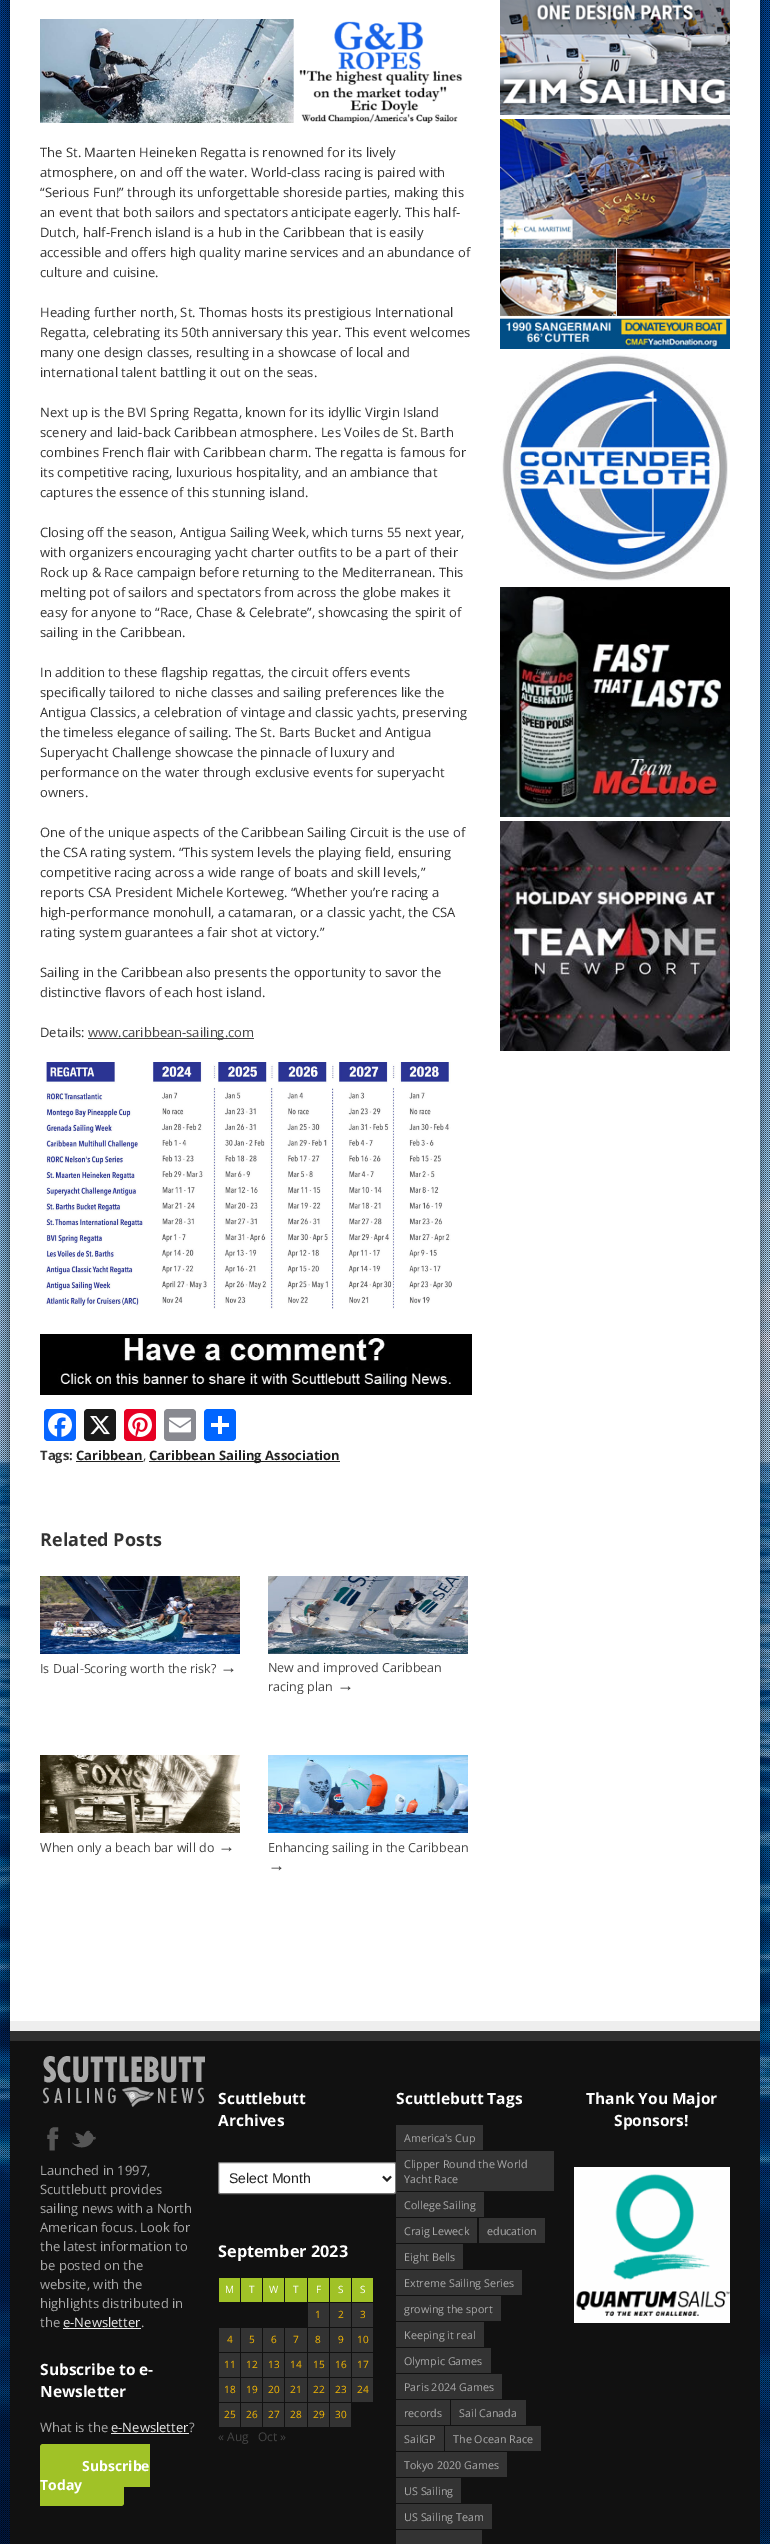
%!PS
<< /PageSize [770 2544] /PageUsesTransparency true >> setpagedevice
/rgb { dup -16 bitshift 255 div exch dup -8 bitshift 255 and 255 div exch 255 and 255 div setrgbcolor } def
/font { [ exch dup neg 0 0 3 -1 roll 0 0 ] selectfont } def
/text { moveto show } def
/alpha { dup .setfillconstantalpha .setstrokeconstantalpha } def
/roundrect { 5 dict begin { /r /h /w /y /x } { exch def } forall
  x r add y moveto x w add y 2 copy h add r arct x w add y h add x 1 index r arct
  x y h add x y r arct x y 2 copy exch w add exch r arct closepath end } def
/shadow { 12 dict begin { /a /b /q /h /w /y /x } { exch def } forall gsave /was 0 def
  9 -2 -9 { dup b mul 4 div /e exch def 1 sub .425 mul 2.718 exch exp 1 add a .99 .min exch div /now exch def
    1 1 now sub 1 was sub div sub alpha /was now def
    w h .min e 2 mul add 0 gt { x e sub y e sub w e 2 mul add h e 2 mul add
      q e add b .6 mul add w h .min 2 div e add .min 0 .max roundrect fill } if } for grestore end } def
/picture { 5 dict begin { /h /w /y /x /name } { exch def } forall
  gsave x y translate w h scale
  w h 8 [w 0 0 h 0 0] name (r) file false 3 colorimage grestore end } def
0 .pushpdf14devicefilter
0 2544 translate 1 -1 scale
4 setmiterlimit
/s1 { /OpenSans-Regular 13 font 16#333333 rgb } def
/s2 { /OpenSans-Regular 13 font 16#444444 rgb } def
/s3 { /OpenSans-Bold 13 font 16#333333 rgb } def
/s4 { /OpenSans-Bold 13 font 16#222222 rgb } def
/s5 { /OpenSans-Bold 18 font 16#333333 rgb } def
/s6 { /OpenSans-Regular 12.5 font 16#444444 rgb } def
/s7 { /LiberationSans-Regular 17 font 16#333333 rgb } def
/s8 { /OpenSans-Bold 15.5 font 16#FFFFFF rgb } def
/s9 { /LiberationSans-Regular 14 font 16#222222 rgb } def
/s10 { /OpenSans-Bold 16.25 font 16#FFFFFF rgb } def
/s11 { /OpenSans-Regular 10 font 16#FFFFFF rgb } def
/s12 { /OpenSans-Regular 10 font 16#F9BA00 rgb } def
/s13 { /OpenSans-Regular 12 font 16#444444 rgb } def
/s14 { /OpenSans-Regular 10.75 font 16#AAAAAA rgb } def
/s15 { /OpenSans-Regular 13 font 16#AAAAAA rgb } def
/s16 { /OpenSans-Regular 13 font 16#EAEAEA rgb } def
/s17 { /OpenSans-Bold 14 font 16#FFFFFF rgb } def
16#FFFFFF rgb
0 0 770 2544 rectfill
(pic1.raw) 0 0 770 2544 picture
(pic2.raw) 0 0 770 2544 picture
16#000000 rgb
10 -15 750 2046 0 5 0.5 shadow
16#FFFFFF rgb
10 0 750 2031 rectfill
(pic3.raw) 40 19 423 104 picture
s1
(The St. Maarten Heineken Regatta is renowned for its lively) 40 157 text
(atmosphere, on and off the water. World-class racing is paired with) 40 177 text
(“Serious Fun!” through its unforgettable shoreside parties, making this) 40 197 text
(an event that both sailors and spectators anticipate eagerly. This half-) 40 217 text
(Dutch, half-French island is a hub in the Caribbean that is easily) 40 237 text
(accessible and offers high quality marine services and an abundance of) 40 257 text
(culture and cuisine.) 40 277 text
(Heading further north, St. Thomas hosts its prestigious International) 40 317 text
(Regatta, celebrating its 50th anniversary this year. This event welcomes) 40 337 text
(many one design classes, resulting in a showcase of local and) 40 357 text
(international talent battling it out on the seas.) 40 377 text
(Next up is the BVI Spring Regatta, known for its idyllic Virgin Island) 40 417 text
(scenery and laid-back Caribbean atmosphere. Les Voiles de St. Barth) 40 437 text
(combines French flair with Caribbean charm. The regatta is famous for) 40 457 text
(its competitive racing, luxurious hospitality, and an ambiance that) 40 477 text
(captures the essence of this stunning island.) 40 497 text
(Closing off the season, Antigua Sailing Week, which turns 55 next year,) 40 537 text
(with organizers encouraging yacht charter outfits to be a part of their) 40 557 text
(Rock up & Race campaign before returning to the Mediterranean. This) 40 577 text
(melting pot of sailors and spectators from across the globe makes it) 40 597 text
(easy for anyone to “Race, Chase & Celebrate”, showcasing the spirit of) 40 617 text
(sailing in the Caribbean.) 40 637 text
(In addition to these flagship regattas, the circuit offers events) 40 677 text
(specifically tailored to niche classes and sailing preferences like the) 40 697 text
(Antigua Classics, a celebration of vintage and classic yachts, preserving) 40 717 text
(the timeless elegance of sailing. The St. Barts Bucket and Antigua) 40 737 text
(Superyacht Challenge showcase the pinnacle of luxury and) 40 757 text
(performance on the water through exclusive events for superyacht) 40 777 text
(owners.) 40 797 text
(One of the unique aspects of the Caribbean Sailing Circuit is the use of) 40 837 text
(the CSA rating system. “This system levels the playing field, ensuring) 40 857 text
(competitive racing across a wide range of boats and skill levels,”) 40 877 text
(reports CSA President Michele Korteweg. “Whether you’re racing a) 40 897 text
(high-performance monohull, a catamaran, or a classic yacht, the CSA) 40 917 text
(rating system guarantees a fair shot at victory.”) 40 937 text
(Sailing in the Caribbean also presents the opportunity to savor the) 40 977 text
(distinctive flavors of each host island.) 40 997 text
(Details:) 40 1037 text
16#444444 rgb
88 1038 166 1 rectfill
(www.caribbean-sailing.com) 88 1037 text
(pic4.raw) 45 1062 407 247 picture
(pic5.raw) 40 1334 432 61 picture
16#0866FF rgb
44 1409 32 32 4 roundrect fill
(pic6.raw) 48 1413 24 24 picture
16#1A1A1A rgb
84 1409 32 32 4 roundrect fill
(pic7.raw) 90 1416 20 19 picture
16#E60023 rgb
124 1409 32 32 4 roundrect fill
(pic8.raw) 128 1413 24 24 picture
16#888990 rgb
164 1409 32 32 4 roundrect fill
(pic9.raw) 169 1417 22 16 picture
16#0166FF rgb
204 1409 32 32 4 roundrect fill
16#FFFFFF rgb
218 1416 4 18 rectfill
211 1423 18 4 rectfill
s3
(Tags:) 40 1460 text
s4
(Caribbean) 76 1460 text
76 1461 67 1 rectfill
s1
(,) 143 1460 text
16#222222 rgb
149 1461 191 1 rectfill
s4
(Caribbean Sailing Association) 149 1460 text
s5
(Related Posts) 40 1546 text
(pic10.raw) 40 1576 200 78 picture
s6
(Is Dual-Scoring worth the risk?) 40 1673 text
s7
(→) 220 1673 text
(pic11.raw) 268 1576 200 78 picture
s6
(New and improved Caribbean) 268 1672 text
(racing plan) 268 1691 text
s7
(→) 337 1691 text
(pic12.raw) 40 1755 200 78 picture
s6
(When only a beach bar will do) 40 1852 text
s7
(→) 218 1852 text
(pic13.raw) 268 1755 200 78 picture
s6
(Enhancing sailing in the Caribbean) 268 1852 text
s7
(→) 268 1871 text
(pic14.raw) 500 0 230 115 picture
(pic15.raw) 500 119 230 230 picture
(pic16.raw) 500 353 228 228 picture
(pic17.raw) 500 587 230 230 picture
(pic18.raw) 500 821 230 230 picture
16#111111 rgb
10 2031 750 513 rectfill
0.2 alpha
16#AAAAAA rgb
10 2021 750 20 rectfill
1 alpha
s8
(Scuttlebutt) 218 2104 text
(Archives) 218 2126 text
218.5 2162.5 177 31 1.5 roundrect gsave fill grestore
16#767676 rgb
stroke
16#222222 rgb
2 setlinewidth
383 2176.5 moveto 387 2180.5 lineto 391 2176.5 lineto stroke
s9
(Select Month) 229 2183 text
s10
(September 2023) 218 2257 text
16#A0C227 rgb
219 2278 21 24 rectfill
s11
(M) 225 2293 text
16#A0C227 rgb
241 2278 21 24 rectfill
s11
(T) 249 2293 text
16#A0C227 rgb
263 2278 21 24 rectfill
s11
(W) 269 2293 text
16#A0C227 rgb
285 2278 22 24 rectfill
s11
(T) 293 2293 text
16#A0C227 rgb
308 2278 21 24 rectfill
s11
(F) 316 2293 text
16#A0C227 rgb
330 2278 21 24 rectfill
s11
(S) 338 2293 text
16#A0C227 rgb
352 2278 21 24 rectfill
s11
(S) 360 2293 text
16#333333 rgb
308 2303 21 24 rectfill
s12
(1) 315 2318 text
16#333333 rgb
330 2303 21 24 rectfill
s12
(2) 338 2318 text
16#333333 rgb
352 2303 21 24 rectfill
s12
(3) 360 2318 text
16#333333 rgb
219 2328 21 24 rectfill
s12
(4) 227 2343 text
16#333333 rgb
241 2328 21 24 rectfill
s12
(5) 249 2343 text
16#333333 rgb
263 2328 21 24 rectfill
s12
(6) 271 2343 text
16#333333 rgb
285 2328 22 24 rectfill
s12
(7) 293 2343 text
16#333333 rgb
308 2328 21 24 rectfill
s12
(8) 315 2343 text
16#333333 rgb
330 2328 21 24 rectfill
s12
(9) 338 2343 text
16#333333 rgb
352 2328 21 24 rectfill
s12
(10) 357 2343 text
16#333333 rgb
219 2353 21 24 rectfill
s12
(11) 224 2368 text
16#333333 rgb
241 2353 21 24 rectfill
s12
(12) 246 2368 text
16#333333 rgb
263 2353 21 24 rectfill
s12
(13) 268 2368 text
16#333333 rgb
285 2353 22 24 rectfill
s12
(14) 290 2368 text
16#333333 rgb
308 2353 21 24 rectfill
s12
(15) 313 2368 text
16#333333 rgb
330 2353 21 24 rectfill
s12
(16) 335 2368 text
16#333333 rgb
352 2353 21 24 rectfill
s12
(17) 357 2368 text
16#333333 rgb
219 2378 21 24 rectfill
s12
(18) 224 2393 text
16#333333 rgb
241 2378 21 24 rectfill
s12
(19) 246 2393 text
16#333333 rgb
263 2378 21 24 rectfill
s12
(20) 268 2393 text
16#333333 rgb
285 2378 22 24 rectfill
s12
(21) 290 2393 text
16#333333 rgb
308 2378 21 24 rectfill
s12
(22) 313 2393 text
16#333333 rgb
330 2378 21 24 rectfill
s12
(23) 335 2393 text
16#333333 rgb
352 2378 21 24 rectfill
s12
(24) 357 2393 text
16#333333 rgb
219 2403 21 24 rectfill
s12
(25) 224 2418 text
16#333333 rgb
241 2403 21 24 rectfill
s12
(26) 246 2418 text
16#333333 rgb
263 2403 21 24 rectfill
s12
(27) 268 2418 text
16#333333 rgb
285 2403 22 24 rectfill
s12
(28) 290 2418 text
16#333333 rgb
308 2403 21 24 rectfill
s12
(29) 313 2418 text
16#333333 rgb
330 2403 21 24 rectfill
s12
(30) 335 2418 text
s13
(« Aug) 218 2441 text
(Oct ») 258 2441 text
s8
(Scuttlebutt Tags) 396 2104 text
16#333333 rgb
396 2125 87 25 rectfill
s14
(America's Cup) 404 2142 text
16#333333 rgb
396 2151 158 40 rectfill
s14
(Clipper Round the World) 404 2168 text
(Yacht Race) 404 2183 text
16#333333 rgb
396 2192 88 25 rectfill
s14
(College Sailing) 404 2209 text
16#333333 rgb
396 2218 81 25 rectfill
s14
(Craig Leweck) 404 2235 text
16#333333 rgb
479 2218 66 25 rectfill
s14
(education) 487 2235 text
16#333333 rgb
396 2244 67 25 rectfill
s14
(Eight Bells) 404 2261 text
16#333333 rgb
396 2270 126 25 rectfill
s14
(Extreme Sailing Series) 404 2287 text
16#333333 rgb
396 2296 105 25 rectfill
s14
(growing the sport) 404 2313 text
16#333333 rgb
396 2322 88 25 rectfill
s14
(Keeping it real) 404 2339 text
16#333333 rgb
396 2348 95 25 rectfill
s14
(Olympic Games) 404 2365 text
16#333333 rgb
396 2374 106 25 rectfill
s14
(Paris 2024 Games) 404 2391 text
16#333333 rgb
396 2400 54 25 rectfill
s14
(records) 404 2417 text
16#333333 rgb
451 2400 75 25 rectfill
s14
(Sail Canada) 459 2417 text
16#333333 rgb
396 2426 48 25 rectfill
s14
(SailGP) 404 2443 text
16#333333 rgb
445 2426 96 25 rectfill
s14
(The Ocean Race) 453 2443 text
16#333333 rgb
396 2452 111 25 rectfill
s14
(Tokyo 2020 Games) 404 2469 text
16#333333 rgb
396 2478 65 25 rectfill
s14
(US Sailing) 404 2495 text
16#333333 rgb
396 2504 96 25 rectfill
s14
(US Sailing Team) 404 2521 text
16#333333 rgb
396 2530 86 14 rectfill
s8
(Thank You Major) 586 2104 text
(Sponsors!) 614 2126 text
(pic19.raw) 574 2167 156 156 picture
(pic20.raw) 43 2056 162 51 picture
16#555555 rgb
47 2127 12 24 rectfill
(pic21.raw) 40 2124 30 28 picture
72 2130 24 18 rectfill
(pic22.raw) 70 2124 35 28 picture
s15
(Launched in 1997,) 40 2175 text
(Scuttlebutt provides) 40 2194 text
(sailing news with a North) 40 2213 text
(American focus. Look for) 40 2232 text
(the latest information to) 40 2251 text
(be posted on the) 40 2270 text
(website, with the) 40 2289 text
(highlights distributed in) 40 2308 text
(the) 40 2327 text
s16
(e-Newsletter) 63 2327 text
s15
(.) 141 2327 text
16#EAEAEA rgb
63 2328 78 1 rectfill
s8
(Subscribe to e-) 40 2375 text
(Newsletter) 40 2397 text
s15
(What is the) 40 2432 text
s16
(e-Newsletter) 111 2432 text
111 2433 78 1 rectfill
s15
(?) 189 2432 text
16#A0C227 rgb
43 2444 moveto 150 2444 lineto 150 2487 lineto 43 2487 lineto 41.5 2487 40 2485.5 40 2484 curveto 40 2447 lineto 40 2445.5 41.5 2444 43 2444 curveto closepath fill
40 2463 moveto 121 2463 lineto 122.5 2463 124 2464.5 124 2466 curveto 124 2503 lineto 124 2504.5 122.5 2506 121 2506 curveto 40 2506 lineto closepath fill
s17
(Subscribe) 82 2471 text
(Today) 40 2490 text
.poppdf14devicefilter showpage
